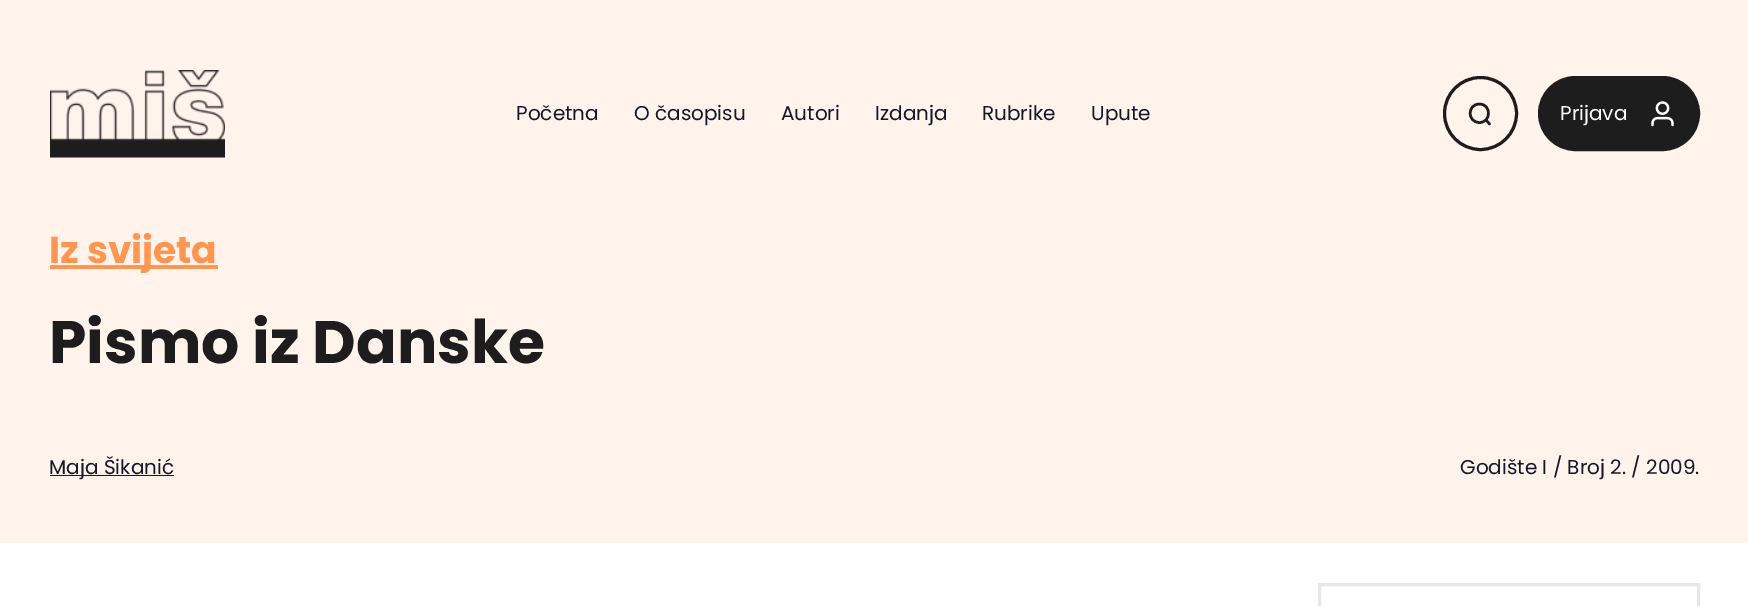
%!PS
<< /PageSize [1748 606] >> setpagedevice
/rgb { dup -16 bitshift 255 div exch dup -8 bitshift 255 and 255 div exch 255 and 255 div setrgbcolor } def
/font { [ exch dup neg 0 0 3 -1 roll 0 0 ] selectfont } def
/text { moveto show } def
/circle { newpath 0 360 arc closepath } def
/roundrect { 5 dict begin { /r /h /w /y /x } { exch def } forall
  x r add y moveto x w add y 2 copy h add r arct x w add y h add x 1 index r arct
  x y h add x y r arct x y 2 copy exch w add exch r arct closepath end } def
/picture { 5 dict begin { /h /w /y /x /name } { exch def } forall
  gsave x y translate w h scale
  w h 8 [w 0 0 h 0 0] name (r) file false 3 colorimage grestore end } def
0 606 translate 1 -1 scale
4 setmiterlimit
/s1 { /Poppins-Regular 20 font 16#111827 rgb } def
/s2 { /Poppins-Regular 20 font 16#FFFFFF rgb } def
/s3 { /Poppins-Bold 37.5 font 16#FF9652 rgb } def
/s4 { /Poppins-Bold 60 font 16#1D1D1D rgb } def
16#FFFFFF rgb
0 0 1748 606 rectfill
16#FFF3EC rgb
0 0 1748 543 rectfill
(pic1.raw) 50 70 175 88 picture
s1
(Početna) 516 120 text
(O časopisu) 634 120 text
(Autori) 781 120 text
(Izdanja) 875 120 text
(Rubrike) 982 120 text
(Upute) 1091 120 text
16#1D1D1D rgb
3 setlinewidth
1480.5 113.5 36 circle stroke
2.5 setlinewidth
1 setlinecap
1 setlinejoin
1479.5 122.5 moveto 1491.5 122.5 1491.5 104 1479.5 104 curveto 1467 104 1467 122.5 1479.5 122.5 curveto closepath 1486 120 moveto 1489.5 124 lineto stroke
1539.5 77.5 159 72 36 roundrect gsave fill grestore
3 setlinewidth
0 setlinecap
0 setlinejoin
stroke
s2
(Prijava) 1560 120 text
(pic2.raw) 1651 101 23 26 picture
16#FF9652 rgb
50 265 168 4 rectfill
s3
(Iz svijeta) 49 263 text
s4
(Pismo iz Danske) 49 363 text
16#111827 rgb
50 475 124 1 rectfill
s1
(Maja Šikanić) 49 474 text
(Godište I / Broj 2. / 2009.) 1460 474 text
16#E5E7EB rgb
1319.5 584.5 379 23 rectstroke
showpage
